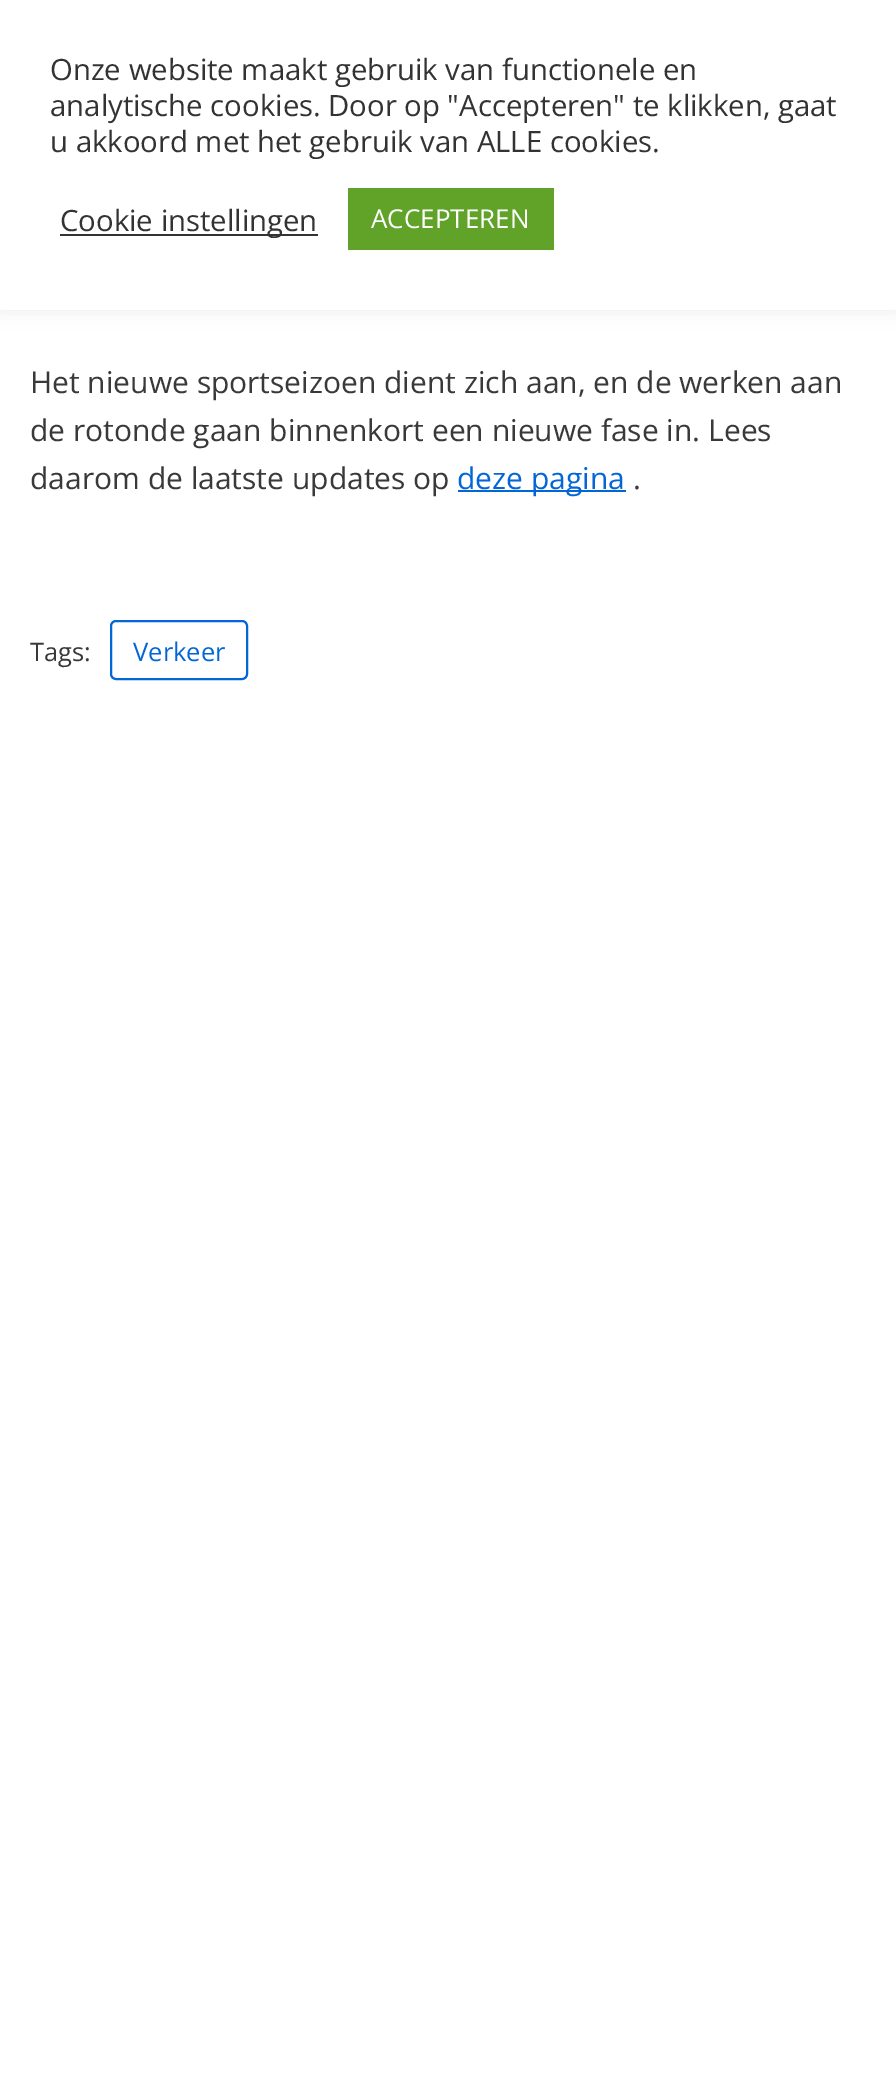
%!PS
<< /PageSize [896 2089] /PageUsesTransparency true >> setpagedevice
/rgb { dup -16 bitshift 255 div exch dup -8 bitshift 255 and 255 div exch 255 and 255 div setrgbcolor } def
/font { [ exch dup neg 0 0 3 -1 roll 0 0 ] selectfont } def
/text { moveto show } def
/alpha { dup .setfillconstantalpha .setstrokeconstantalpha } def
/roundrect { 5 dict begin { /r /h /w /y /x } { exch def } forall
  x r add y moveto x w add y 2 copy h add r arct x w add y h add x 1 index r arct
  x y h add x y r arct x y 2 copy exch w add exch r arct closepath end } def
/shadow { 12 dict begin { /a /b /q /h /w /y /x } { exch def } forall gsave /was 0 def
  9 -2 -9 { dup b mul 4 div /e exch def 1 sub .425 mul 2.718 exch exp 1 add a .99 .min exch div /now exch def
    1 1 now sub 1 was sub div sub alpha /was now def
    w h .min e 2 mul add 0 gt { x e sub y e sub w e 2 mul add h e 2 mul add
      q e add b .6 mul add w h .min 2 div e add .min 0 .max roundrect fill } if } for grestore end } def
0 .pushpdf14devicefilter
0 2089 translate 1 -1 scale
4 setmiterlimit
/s1 { /OpenSans-Regular 29.3 font 16#333333 rgb } def
/s2 { /OpenSans-Regular 26 font 16#FFFFFF rgb } def
/s3 { /OpenSans-Regular 30 font 16#393939 rgb } def
/s4 { /OpenSans-Regular 30 font 16#0366D6 rgb } def
/s5 { /OpenSans-Regular 25.5 font 16#393939 rgb } def
/s6 { /OpenSans-Regular 25.5 font 16#0366D6 rgb } def
16#FFFFFF rgb
0 0 896 2089 rectfill
16#ACABAB rgb
0 -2 896 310 0 10 0.3 shadow
16#FFFFFF rgb
0 0 896 310 rectfill
s1
(Onze website maakt gebruik van functionele en) 50 80 text
(analytische cookies. Door op "Accepteren" te klikken, gaat) 50 116 text
(u akkoord met het gebruik van ALLE cookies.) 50 152 text
60 234 258 2 rectfill
(Cookie instellingen) 60 231 text
16#61A229 rgb
348 188 206 62 rectfill
s2
(ACCEPTEREN) 371 228 text
s3
(Het nieuwe sportseizoen dient zich aan, en de werken aan) 30 393 text
(de rotonde gaan binnenkort een nieuwe fase in. Lees) 30 441 text
(daarom de laatste updates op) 30 489 text
16#0366D6 rgb
458 490 124 2 rectfill
(deze pagina) 457 489 text
s3
(.) 633 489 text
16#0366D6 rgb
582 490 44 2 rectfill
s5
(Tags:) 30 661 text
16#0366D6 rgb
2 setlinewidth
111 621 136 58 5 roundrect stroke
(Verkeer) 133 661 text
.poppdf14devicefilter showpage
